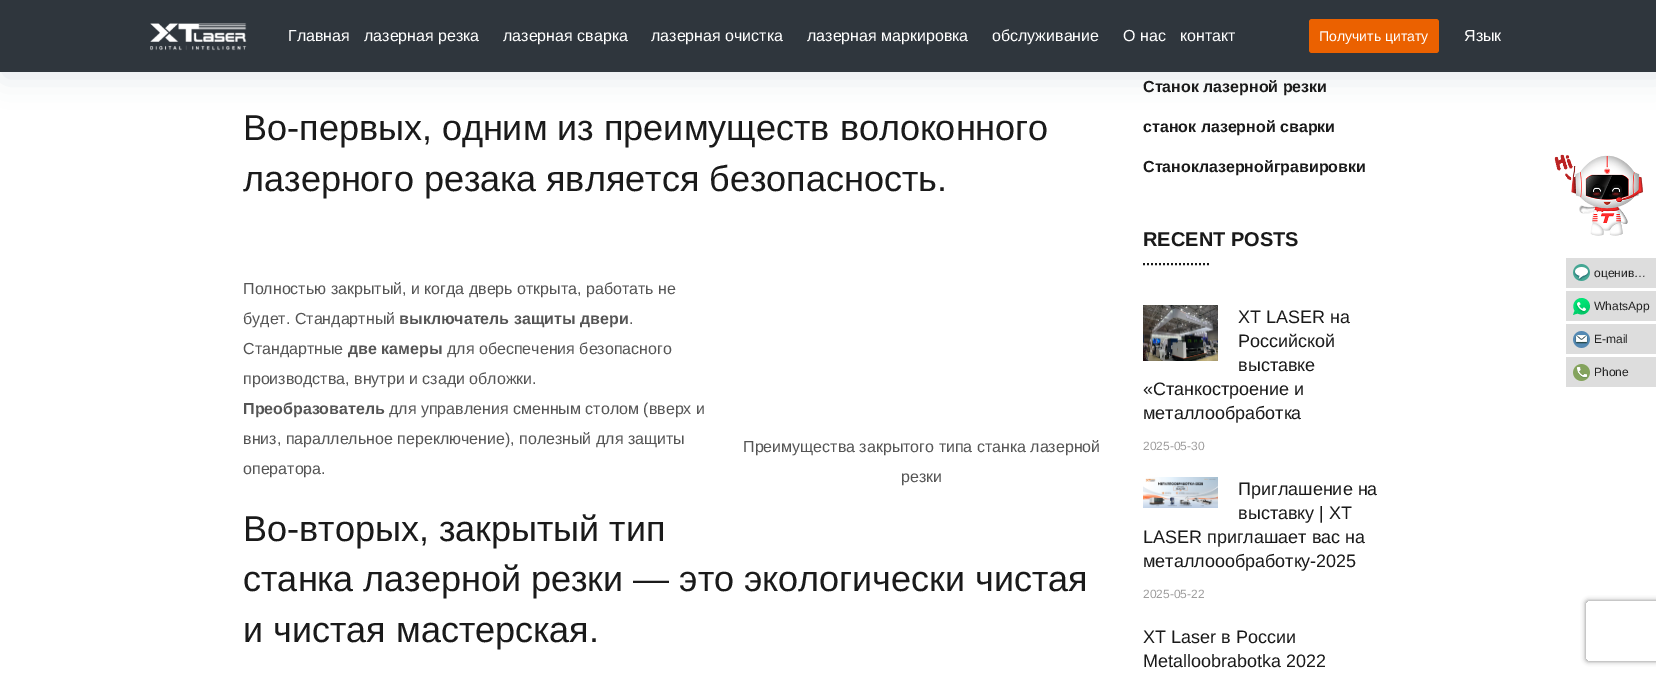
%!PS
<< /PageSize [1656 675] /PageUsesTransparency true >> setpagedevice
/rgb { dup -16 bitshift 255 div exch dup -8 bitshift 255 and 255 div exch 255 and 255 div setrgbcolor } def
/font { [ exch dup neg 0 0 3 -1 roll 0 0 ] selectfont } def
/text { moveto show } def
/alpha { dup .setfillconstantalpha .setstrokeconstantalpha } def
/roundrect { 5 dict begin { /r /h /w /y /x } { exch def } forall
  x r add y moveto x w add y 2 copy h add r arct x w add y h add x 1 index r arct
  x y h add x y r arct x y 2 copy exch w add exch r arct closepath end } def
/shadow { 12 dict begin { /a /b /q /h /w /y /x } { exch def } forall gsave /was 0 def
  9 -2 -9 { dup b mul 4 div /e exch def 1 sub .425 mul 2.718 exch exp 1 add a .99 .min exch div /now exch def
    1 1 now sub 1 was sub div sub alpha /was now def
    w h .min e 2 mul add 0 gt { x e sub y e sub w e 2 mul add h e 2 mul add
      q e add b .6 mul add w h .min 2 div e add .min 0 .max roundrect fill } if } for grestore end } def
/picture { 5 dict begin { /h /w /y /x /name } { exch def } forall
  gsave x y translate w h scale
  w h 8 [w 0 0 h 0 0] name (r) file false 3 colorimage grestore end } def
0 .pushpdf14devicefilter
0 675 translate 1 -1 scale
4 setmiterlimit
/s1 { /LiberationSans-Regular 16 font 16#FFFFFF rgb } def
/s2 { /LiberationSans-Regular 14 font 16#FFFFFF rgb } def
/s3 { /LiberationSans-Regular 36 font 16#1A1A1A rgb } def
/s4 { /LiberationSans-Regular 16 font 16#555555 rgb } def
/s5 { /LiberationSans-Bold 16 font 16#555555 rgb } def
/s6 { /LiberationSans-Bold 16 font 16#1A1A1A rgb } def
/s7 { /LiberationSans-Bold 20 font 16#1A1A1A rgb } def
/s8 { /LiberationSans-Regular 18 font 16#1A1A1A rgb } def
/s9 { /LiberationSans-Regular 12 font 16#9F9E9E rgb } def
/s10 { /LiberationSans-Regular 12 font 16#222222 rgb } def
16#FFFFFF rgb
0 0 1656 675 rectfill
16#2A4371 rgb
4 4 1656 72 0 15 0.15 shadow
16#2F363D rgb
0 0 1656 72 rectfill
(pic1.raw) 150 23 97 28 picture
s1
(Главная) 288 41 text
(лазерная резка) 364 41 text
(лазерная сварка) 503 41 text
(лазерная очистка) 651 41 text
(лазерная маркировка) 807 41 text
(обслуживание) 992 41 text
(О нас) 1123 41 text
(контакт) 1180 41 text
16#EB6100 rgb
1309 19 130 34 3 roundrect fill
s2
(Получить цитату) 1319 41 text
s1
(Язык) 1464 41 text
s3
(Во-первых, одним из преимуществ волоконного) 243 140 text
(лазерного резака является безопасность.) 243 191 text
s4
(Полностью закрытый, и когда дверь открыта, работать не) 243 294 text
(будет. Стандартный) 243 324 text
s5
(выключатель защиты двери) 399 324 text
s4
(.) 629 324 text
(Стандартные) 243 354 text
s5
(две камеры) 348 354 text
s4
(для обеспечения безопасного) 447 354 text
(производства, внутри и сзади обложки.) 243 384 text
s5
(Преобразователь) 243 414 text
s4
(для управления сменным столом \(вверх и) 389 414 text
(вниз, параллельное переключение\), полезный для защиты) 243 444 text
(оператора.) 243 474 text
(Преимущества закрытого типа станка лазерной) 743 452 text
(резки) 901 482 text
s3
(Во-вторых, закрытый тип) 243 541 text
(станка лазерной резки — это экологически чистая) 243 591 text
(и чистая мастерская.) 243 642 text
s6
(Станок лазерной резки) 1143 92 text
(станок лазерной сварки) 1143 132 text
(Станоклазернойгравировки) 1143 172 text
s7
(RECENT POSTS) 1143 246 text
2 setlinewidth
[2 2] 0 setdash
1143 264 moveto 1209 264 lineto stroke
(pic2.raw) 1143 305 75 56 picture
s8
(XT LASER на) 1238 323 text
(Российской) 1238 347 text
(выставке) 1238 371 text
(«Станкостроение и) 1143 395 text
(металлообработка) 1143 419 text
s9
(2025-05-30) 1143 450 text
(pic3.raw) 1143 477 75 31 picture
s8
(Приглашение на) 1238 495 text
(выставку | XT) 1238 519 text
(LASER приглашает вас на) 1143 543 text
(металлоообработку-2025) 1143 567 text
s9
(2025-05-22) 1143 598 text
s8
(XT Laser в России) 1143 643 text
(Metalloobrabotka 2022) 1143 667 text
(pic4.raw) 1554 154 89 82 picture
16#DDDDDD rgb
1566 258 90 30 rectfill
(pic5.raw) 1573 264 17 17 picture
s10
(оценив…) 1594 277 text
16#DDDDDD rgb
1566 291 90 30 rectfill
(pic6.raw) 1573 298 17 17 picture
s10
(WhatsApp) 1594 310 text
16#DDDDDD rgb
1566 324 90 30 rectfill
(pic7.raw) 1573 331 17 17 picture
s10
(E-mail) 1594 343 text
16#DDDDDD rgb
1566 357 90 30 rectfill
(pic8.raw) 1573 364 17 17 picture
s10
(Phone) 1594 376 text
gsave
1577 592 moveto 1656 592 lineto 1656 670 lineto 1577 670 lineto closepath 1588 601 moveto 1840 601 lineto 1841 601 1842 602 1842 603 curveto 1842 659 lineto 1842 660 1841 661 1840 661 curveto 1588 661 lineto 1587 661 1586 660 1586 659 curveto 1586 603 lineto 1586 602 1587 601 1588 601 curveto closepath eoclip newpath
16#808080 rgb
1586 601 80 60 2 2.5 1 shadow
grestore
.poppdf14devicefilter showpage
